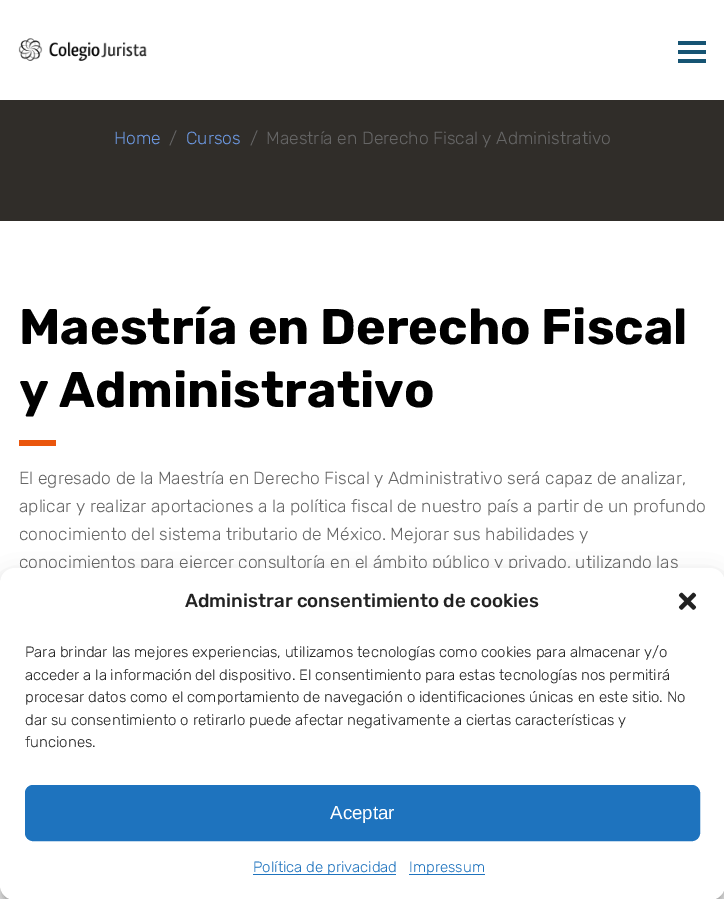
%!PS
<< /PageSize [724 899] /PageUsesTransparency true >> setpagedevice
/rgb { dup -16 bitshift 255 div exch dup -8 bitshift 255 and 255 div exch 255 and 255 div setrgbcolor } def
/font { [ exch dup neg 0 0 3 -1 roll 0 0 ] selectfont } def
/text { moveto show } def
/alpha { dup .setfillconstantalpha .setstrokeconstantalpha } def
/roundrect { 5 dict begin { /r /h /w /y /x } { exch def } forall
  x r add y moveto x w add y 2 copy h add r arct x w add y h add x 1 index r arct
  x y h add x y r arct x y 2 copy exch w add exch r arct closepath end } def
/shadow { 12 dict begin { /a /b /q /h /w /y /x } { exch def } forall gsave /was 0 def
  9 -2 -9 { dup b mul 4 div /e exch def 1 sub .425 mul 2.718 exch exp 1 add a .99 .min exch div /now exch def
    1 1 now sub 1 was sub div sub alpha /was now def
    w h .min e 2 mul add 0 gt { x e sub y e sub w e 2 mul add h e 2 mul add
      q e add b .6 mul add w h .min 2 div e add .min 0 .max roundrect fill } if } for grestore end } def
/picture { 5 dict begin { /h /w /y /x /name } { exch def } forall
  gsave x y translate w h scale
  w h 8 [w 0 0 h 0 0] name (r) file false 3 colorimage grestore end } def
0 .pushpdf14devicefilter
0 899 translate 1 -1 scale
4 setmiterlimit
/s1 { /Rubik-Light 17.5 font 16#6C98E1 rgb } def
/s2 { /Rubik-Light 17.5 font 16#666666 rgb } def
/s3 { /Rubik-Bold 50 font 16#000000 rgb } def
/s4 { /Rubik-Medium 18.75 font 16#222222 rgb } def
/s5 { /Rubik-Light 15 font 16#222222 rgb } def
/s6 { /LiberationSans-Regular 18.75 font 16#FFFFFF rgb } def
/s7 { /Rubik-Light 15 font 16#1E73BE rgb } def
16#FFFFFF rgb
0 0 724 899 rectfill
(pic1.raw) 18 38 129 23 picture
16#165473 rgb
678 41 28 4 rectfill
678 50 28 4 rectfill
678 59 28 4 rectfill
16#302D29 rgb
0 100 724 121 rectfill
s1
(Home) 114 144 text
s2
(/) 169 144 text
s1
(Cursos) 186 144 text
s2
(/) 250 144 text
(Maestría en Derecho Fiscal y Administrativo) 266 144 text
s3
(Maestría en Derecho Fiscal) 19 344 text
(y Administrativo) 19 407 text
16#EA560D rgb
19 440 37 6 rectfill
s2
(El egresado de la Maestría en Derecho Fiscal y Administrativo será capaz de analizar,) 19 484 text
(aplicar y realizar aportaciones a la política fiscal de nuestro país a partir de un profundo) 19 512 text
(conocimiento del sistema tributario de México. Mejorar sus habilidades y) 19 540 text
(conocimientos para ejercer consultoría en el ámbito público y privado, utilizando las) 19 568 text
16#000000 rgb
0 575 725 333 15 4 0.23 shadow
0 580 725 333 15 12.5 0.19 shadow
16#FFFFFF rgb
0 568 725 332 15 roundrect fill
s4
(Administrar consentimiento de cookies) 185 607 text
(pic2.raw) 678 592 19 18 picture
s5
(Para brindar las mejores experiencias, utilizamos tecnologías como cookies para almacenar y/o) 25 657 text
(acceder a la información del dispositivo. El consentimiento para estas tecnologías nos permitirá) 25 680 text
(procesar datos como el comportamiento de navegación o identificaciones únicas en este sitio. No) 25 702 text
(dar su consentimiento o retirarlo puede afectar negativamente a ciertas características y) 25 725 text
(funciones.) 25 747 text
16#1E73BE rgb
25.5 785.5 674 55 7.5 roundrect gsave fill grestore
stroke
s6
(Aceptar) 330 819 text
16#1E73BE rgb
253 874 143 1 rectfill
s7
(Política de privacidad) 253 872 text
409 874 76 1 rectfill
(Impressum) 409 872 text
.poppdf14devicefilter showpage
